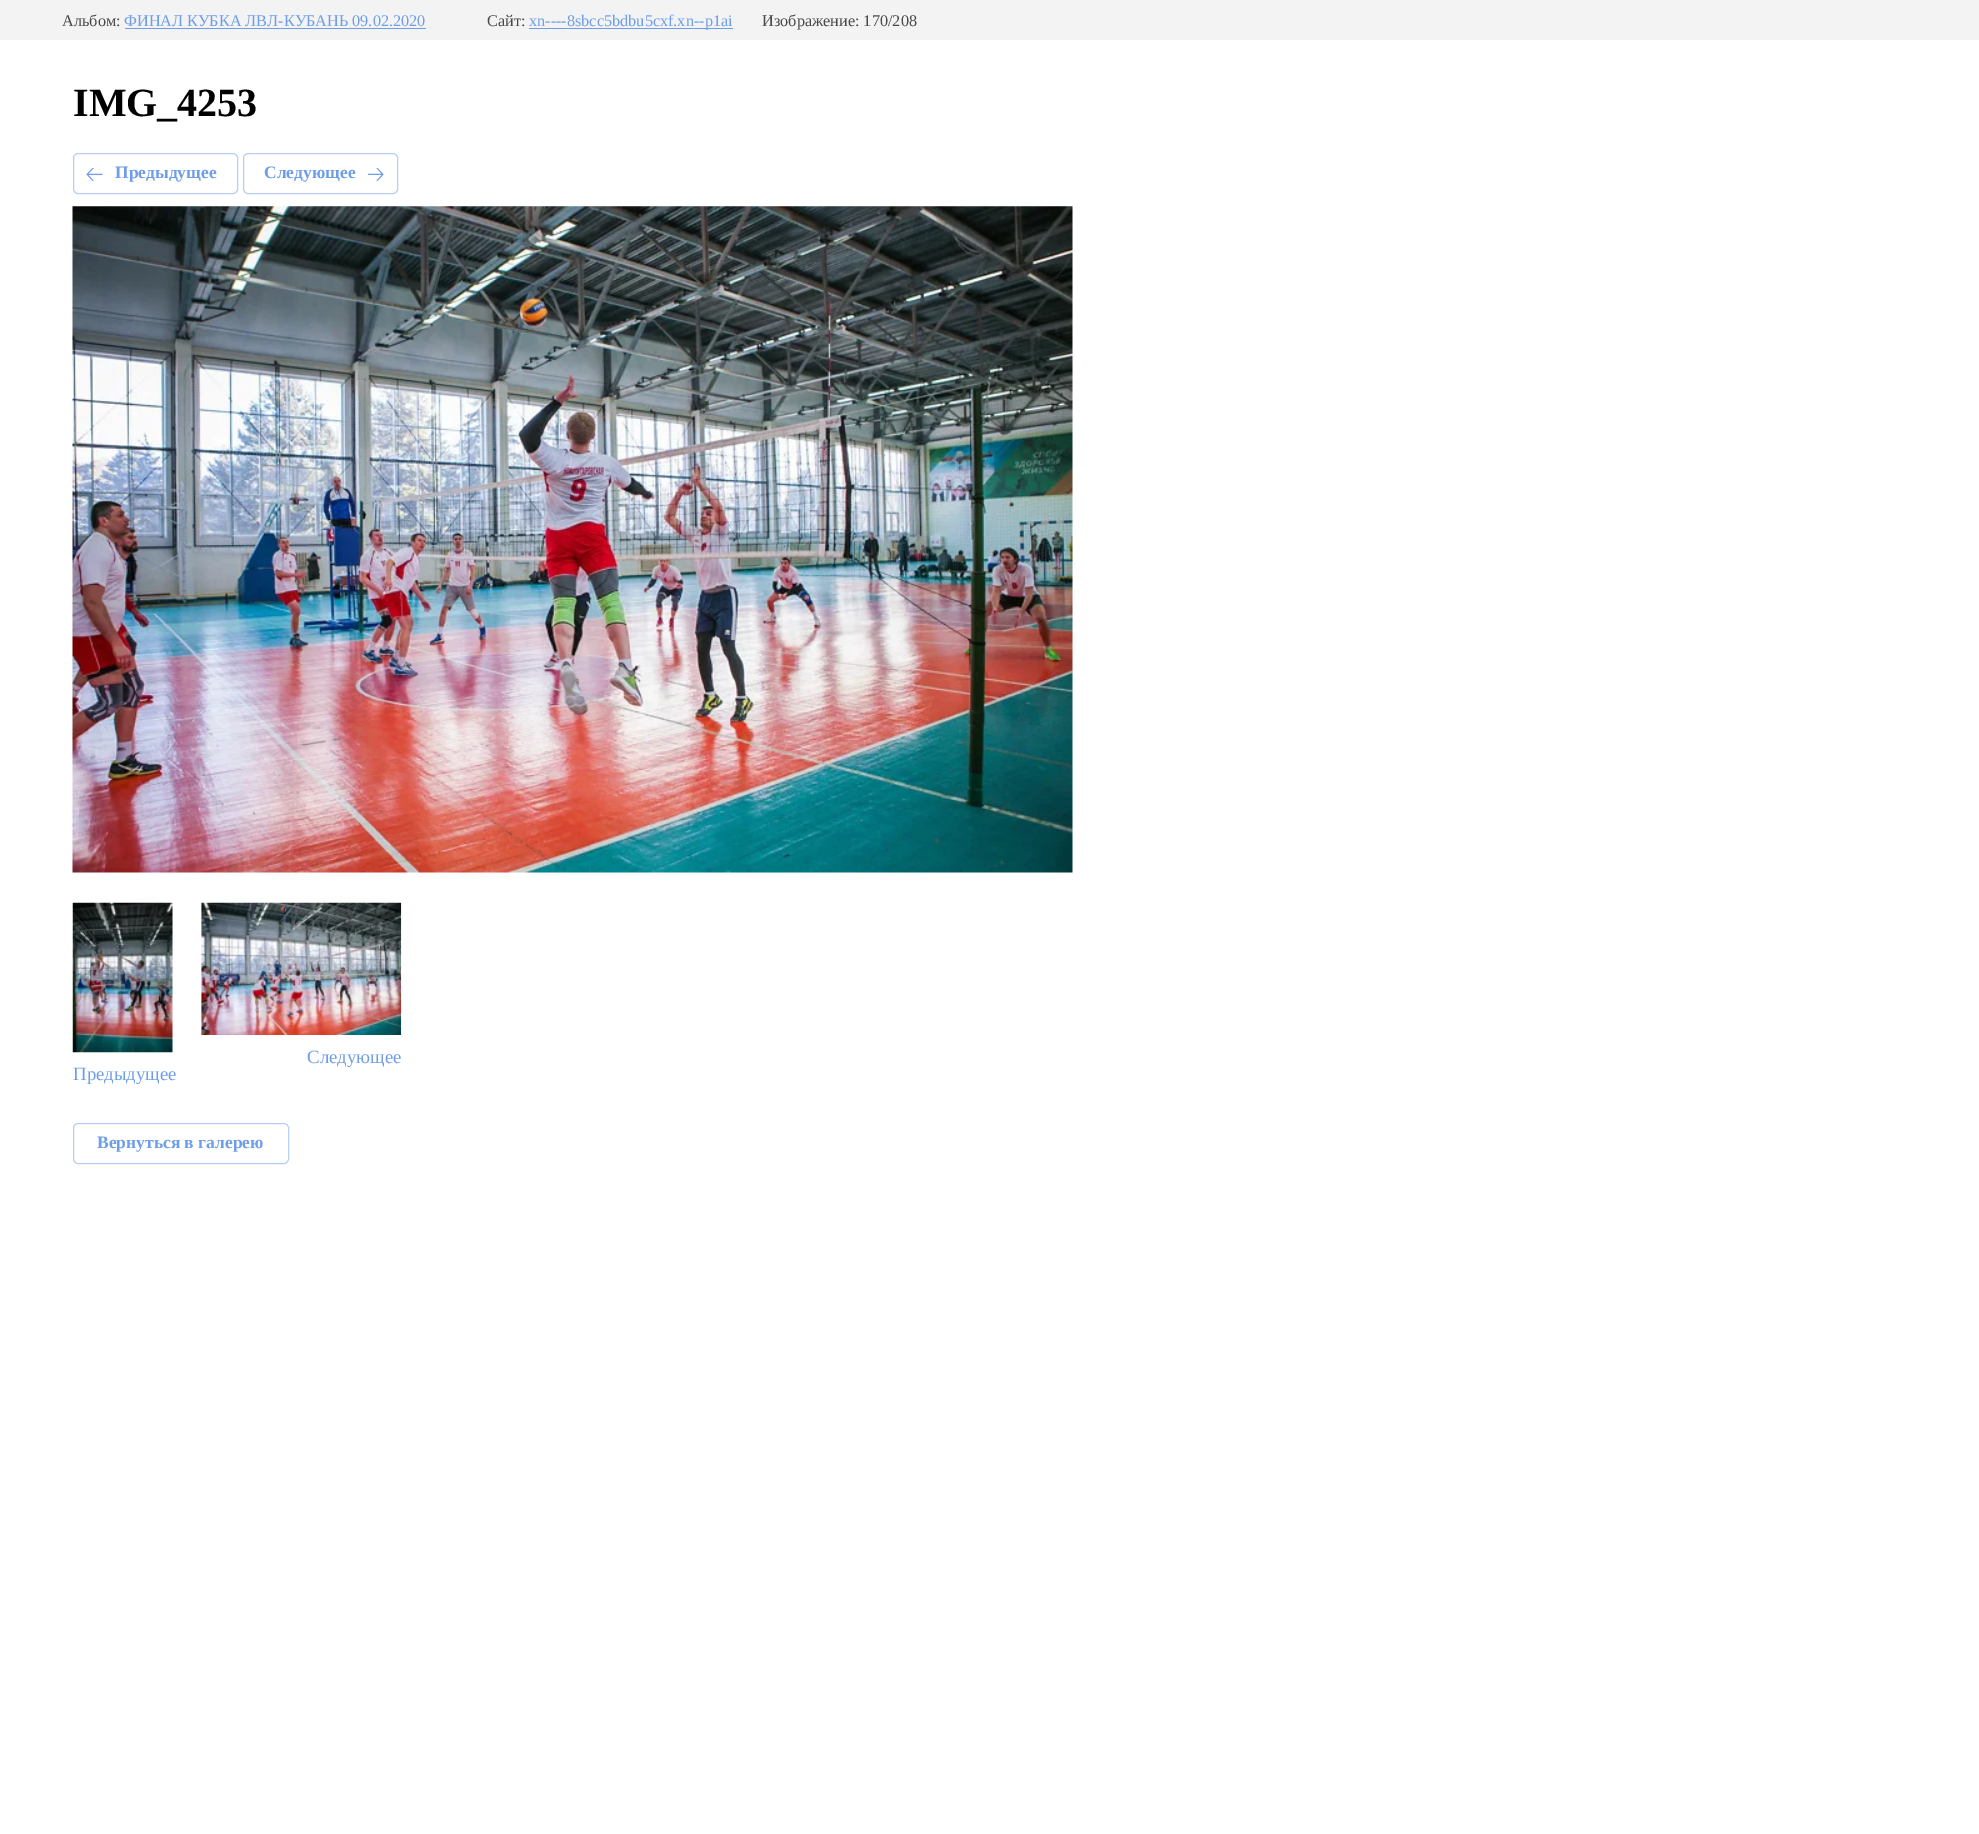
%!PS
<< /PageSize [1979 1834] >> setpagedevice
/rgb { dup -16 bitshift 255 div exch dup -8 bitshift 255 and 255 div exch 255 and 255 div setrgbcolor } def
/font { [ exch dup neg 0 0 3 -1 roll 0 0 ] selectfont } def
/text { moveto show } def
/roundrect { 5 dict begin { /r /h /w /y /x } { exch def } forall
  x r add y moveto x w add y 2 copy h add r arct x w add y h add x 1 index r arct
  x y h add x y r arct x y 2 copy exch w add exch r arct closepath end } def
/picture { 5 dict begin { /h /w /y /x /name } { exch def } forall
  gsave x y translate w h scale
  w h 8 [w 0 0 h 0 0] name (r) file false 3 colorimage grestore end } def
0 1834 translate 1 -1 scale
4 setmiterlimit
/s1 { /LiberationSerif-Regular 16.25 font 16#484848 rgb } def
/s2 { /LiberationSerif-Regular 16.25 font 16#6F9EE8 rgb } def
/s3 { /LiberationSerif-Bold 40 font 16#000000 rgb } def
/s4 { /LiberationSerif-Bold 17.5 font 16#6F9EE8 rgb } def
/s5 { /LiberationSerif-Regular 18.75 font 16#6F9EE8 rgb } def
16#FFFFFF rgb
0 0 1979 1834 rectfill
16#F3F3F3 rgb
0 0 1979 40 rectfill
s1
(Альбом:) 62 26 text
s2
(ФИНАЛ КУБКА ЛВЛ-КУБАНЬ 09.02.2020) 124 26 text
125 28 301 1 rectfill
s1
(Сайт:) 487 26 text
16#6F9EE8 rgb
529 28 204 1 rectfill
(xn----8sbcc5bdbu5cxf.xn--p1ai) 529 26 text
s1
(Изображение: 170/208) 762 26 text
s3
(IMG_4253) 73 116 text
16#B7CFF4 rgb
73.5 153.5 164 40 4.5 roundrect stroke
(pic1.raw) 86 168 17 13 picture
s4
(Предыдущее) 115 178 text
16#B7CFF4 rgb
243.5 153.5 154 40 4.5 roundrect stroke
s4
(Следующее) 264 178 text
(pic2.raw) 368 168 16 13 picture
(pic3.raw) 72 206 1001 667 picture
(pic4.raw) 201 902 201 133 picture
s5
(Следующее) 307 1063 text
(pic5.raw) 72 902 101 151 picture
(Предыдущее) 73 1080 text
16#B7CFF4 rgb
73.5 1123.5 215 40 4.5 roundrect stroke
s4
(Вернуться в галерею) 97 1148 text
showpage
